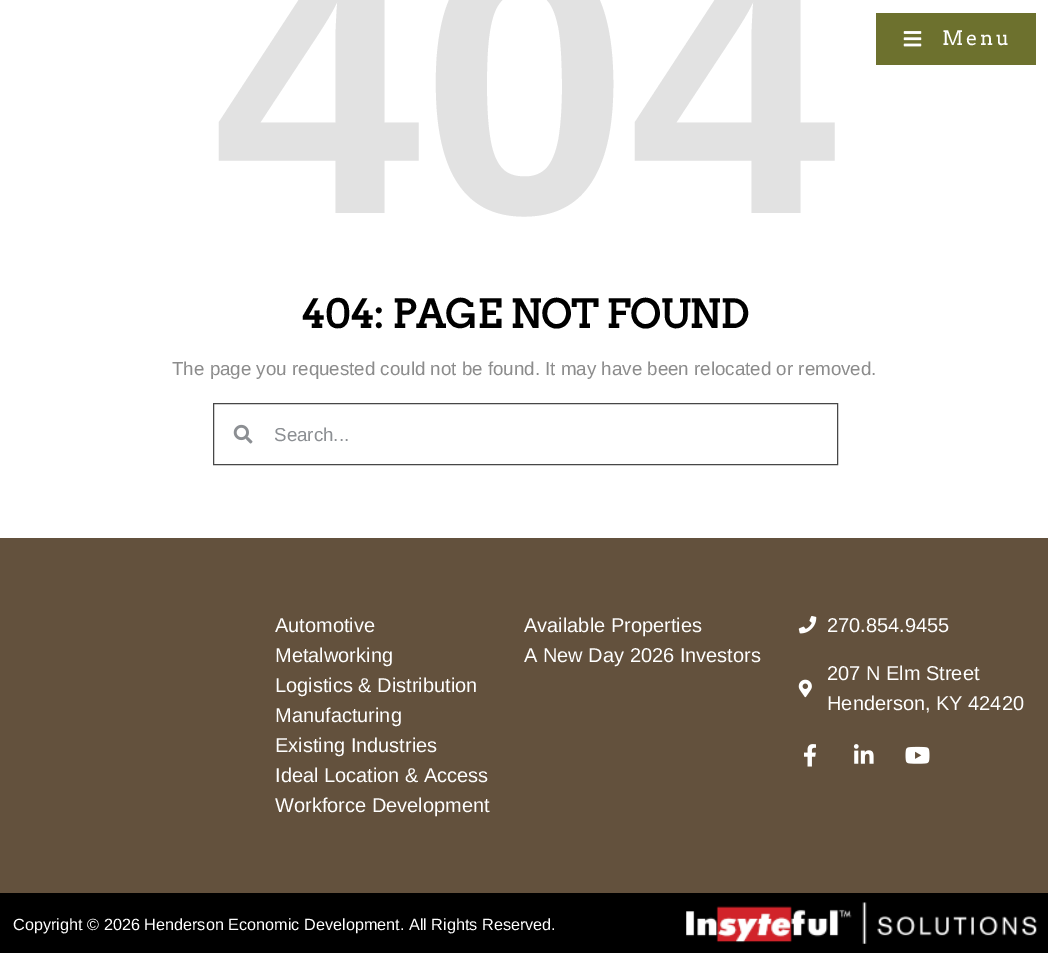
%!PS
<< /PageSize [1048 953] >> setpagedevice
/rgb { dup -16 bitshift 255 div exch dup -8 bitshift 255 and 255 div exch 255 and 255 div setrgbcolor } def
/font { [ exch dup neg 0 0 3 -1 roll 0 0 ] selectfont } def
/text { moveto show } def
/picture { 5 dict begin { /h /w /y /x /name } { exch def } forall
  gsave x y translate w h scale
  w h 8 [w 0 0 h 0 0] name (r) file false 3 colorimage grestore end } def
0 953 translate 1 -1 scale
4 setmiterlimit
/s1 { /LiberationSans-Bold 374 font 16#E2E2E2 rgb } def
/s2 { /Arvo-Bold 38.75 font 16#000000 rgb } def
/s3 { /LiberationSans-Regular 18.75 font 16#8C8C8C rgb } def
/s4 { /LiberationSans-Regular 18.75 font 16#8C8F93 rgb } def
/s5 { /LiberationSans-Regular 20 font 16#FFFFFF rgb } def
/s6 { /LiberationSans-Regular 16.25 font 16#FFFFFF rgb } def
16#FFFFFF rgb
0 0 1048 953 rectfill
s1
(404) 213 213 text
s2
(404: PAGE NOT FOUND) 301 328 text
s3
(The page you requested could not be found. It may have been relocated or removed.) 172 375 text
16#474747 rgb
213.5 403.5 624 61 rectstroke
(pic1.raw) 233 424 20 20 picture
s4
(Search...) 274 441 text
16#6D712E rgb
876 13 160 52 rectfill
(pic2.raw) 903 31 19 16 picture
/Arvo-Regular 20 font
16#FFFFFF rgb
942 45 moveto 2.5 0 (Menu) ashow
16#63513D rgb
0 538 1048 355 rectfill
s5
(Automotive) 275 632 text
(Metalworking) 275 662 text
(Logistics & Distribution) 275 692 text
(Manufacturing) 275 722 text
(Existing Industries) 275 752 text
(Ideal Location & Access) 275 782 text
(Workforce Development) 275 812 text
(Available Properties) 524 632 text
(A New Day 2026 Investors) 524 662 text
(pic3.raw) 798 616 19 18 picture
(270.854.9455) 827 632 text
(pic4.raw) 798 679 14 19 picture
(207 N Elm Street) 827 680 text
(Henderson, KY 42420) 827 710 text
(pic5.raw) 804 744 12 23 picture
(pic6.raw) 853 744 21 20 picture
(pic7.raw) 905 746 25 18 picture
16#000000 rgb
0 893 1048 60 rectfill
s6
(Copyright © 2026 Henderson Economic Development. All Rights Reserved.) 13 930 text
(pic8.raw) 686 902 351 42 picture
showpage
